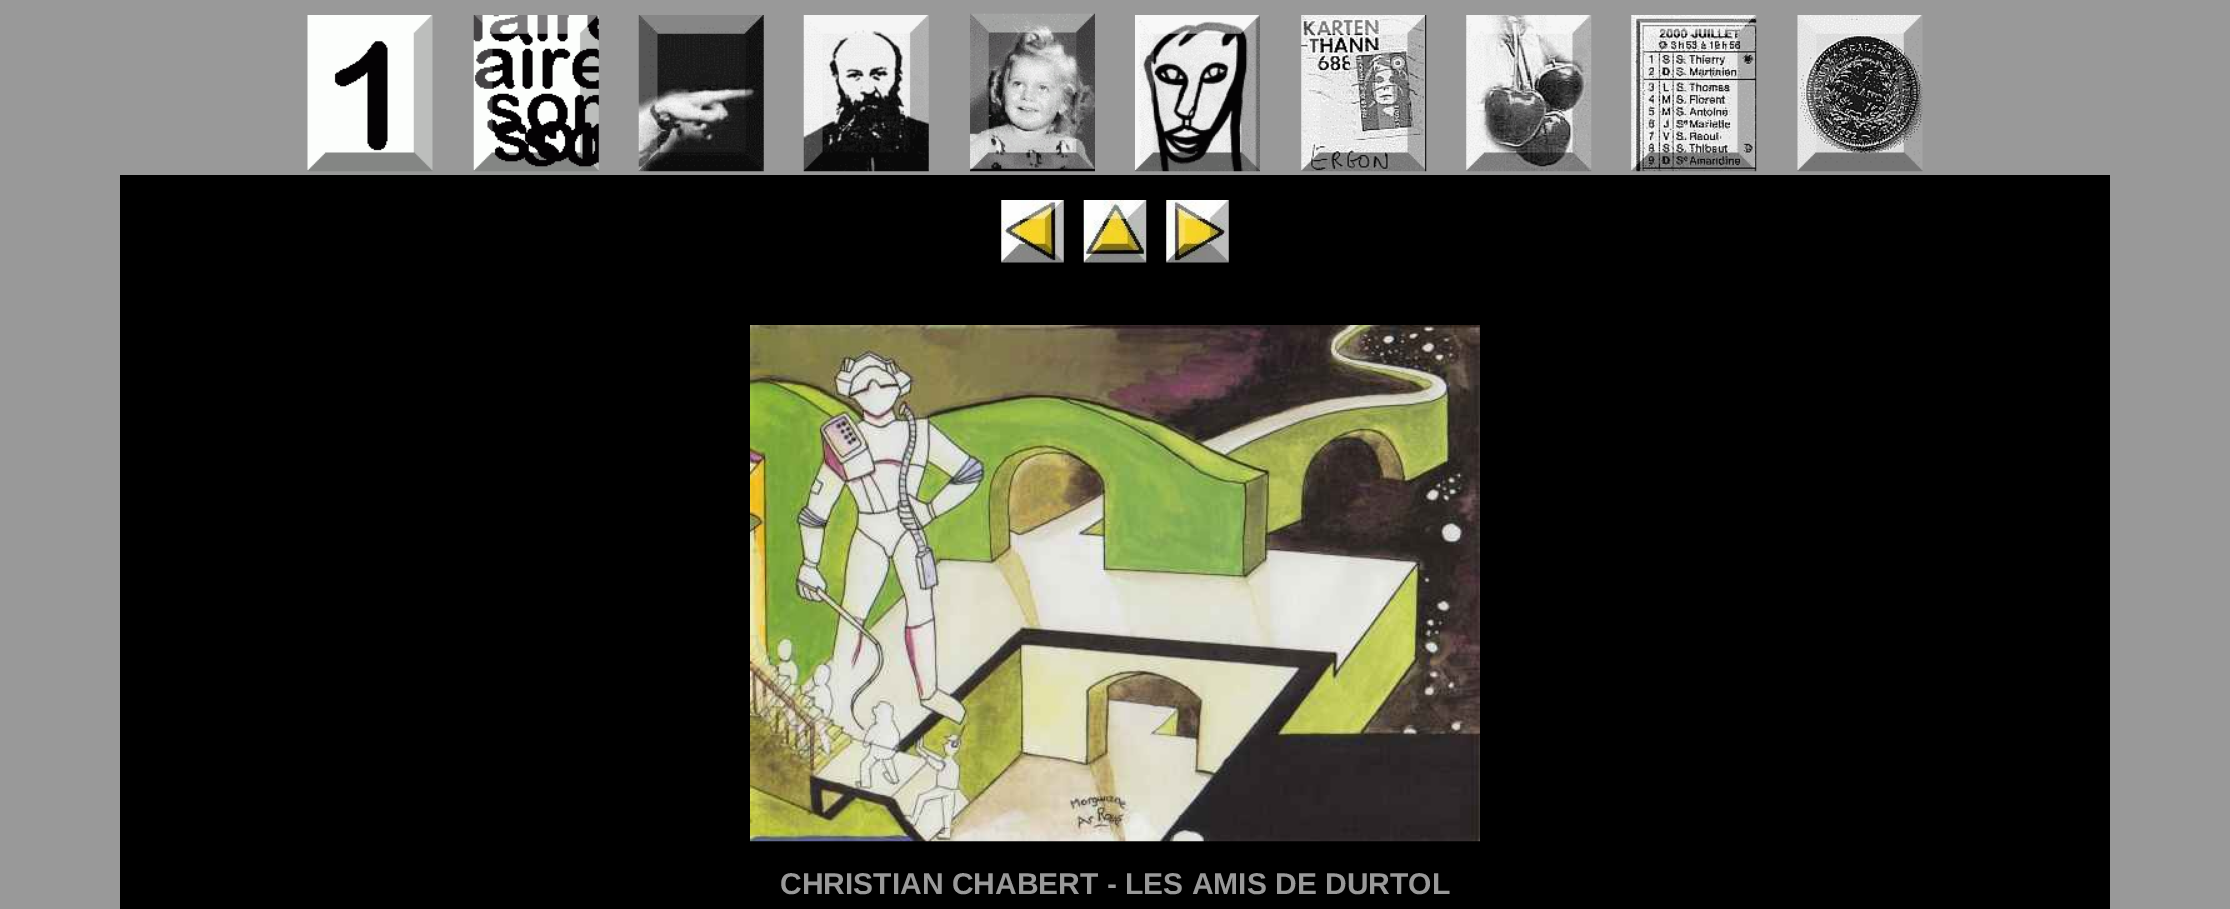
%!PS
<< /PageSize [2230 909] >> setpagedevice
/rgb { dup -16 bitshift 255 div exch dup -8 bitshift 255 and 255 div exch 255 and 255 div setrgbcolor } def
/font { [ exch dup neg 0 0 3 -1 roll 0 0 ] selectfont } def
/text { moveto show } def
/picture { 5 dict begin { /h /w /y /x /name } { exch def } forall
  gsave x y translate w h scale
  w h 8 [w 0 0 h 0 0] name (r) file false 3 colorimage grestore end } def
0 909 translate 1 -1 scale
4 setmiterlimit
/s1 { /LiberationSans-Bold 30 font 16#999999 rgb } def
16#999999 rgb
0 0 2230 909 rectfill
(pic1.raw) 307 15 126 157 picture
(pic2.raw) 473 15 126 157 picture
(pic3.raw) 638 15 126 157 picture
(pic4.raw) 803 15 126 157 picture
(pic5.raw) 970 13 125 159 picture
(pic6.raw) 1135 15 125 157 picture
(pic7.raw) 1301 15 126 157 picture
(pic8.raw) 1466 15 126 157 picture
(pic9.raw) 1631 15 126 157 picture
(pic10.raw) 1797 15 126 157 picture
16#000000 rgb
120 175 1990 734 rectfill
(pic11.raw) 1001 200 63 63 picture
(pic12.raw) 1083 200 64 63 picture
(pic13.raw) 1166 200 63 63 picture
(pic14.raw) 750 325 730 517 picture
s1
(CHRISTIAN CHABERT - LES AMIS DE DURTOL) 780 894 text
showpage
